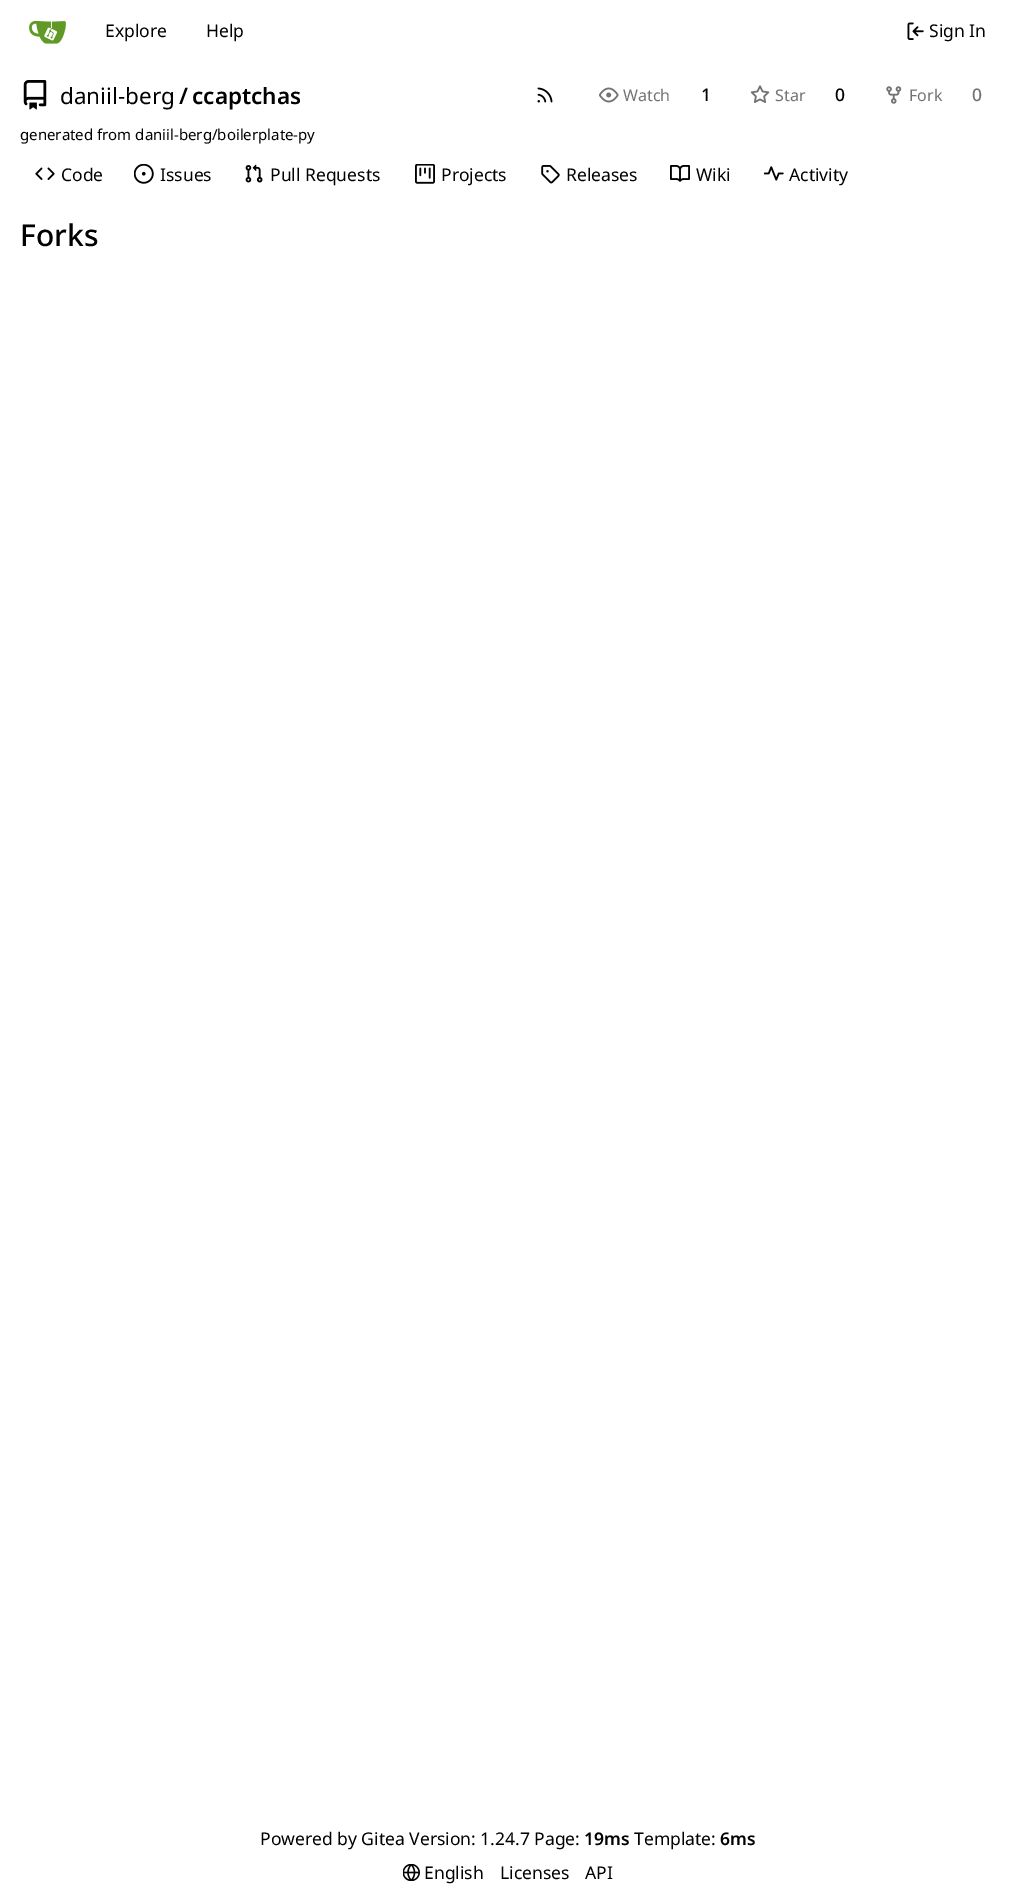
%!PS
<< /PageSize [1015 1894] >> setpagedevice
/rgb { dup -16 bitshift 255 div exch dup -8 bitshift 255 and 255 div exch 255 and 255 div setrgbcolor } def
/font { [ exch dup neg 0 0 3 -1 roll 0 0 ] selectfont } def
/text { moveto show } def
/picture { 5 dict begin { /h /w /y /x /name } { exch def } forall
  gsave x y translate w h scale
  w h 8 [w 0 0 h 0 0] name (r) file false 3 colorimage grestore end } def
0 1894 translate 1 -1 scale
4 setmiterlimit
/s1 { /NotoSans-Regular 17.5 font 16#000000 rgb } def
/s2 { /NotoSans-Regular 22.5 font 16#000000 rgb } def
/s3 { /NotoSans-SemiBold 22.5 font 16#000000 rgb } def
/s4 { /NotoSans-Regular 16 font 16#737373 rgb } def
/s5 { /NotoSans-Medium 17.5 font 16#000000 rgb } def
/s6 { /NotoSans-Medium 17.5 font 16#737373 rgb } def
/s7 { /NotoSans-Regular 15 font 16#000000 rgb } def
/s8 { /NotoSans-Medium 30 font 16#000000 rgb } def
/s9 { /NotoSans-SemiBold 17.5 font 16#000000 rgb } def
16#FFFFFF rgb
0 0 1015 1894 rectfill
(pic1.raw) 29 20 37 24 picture
s1
(Explore) 105 37 text
(Help) 206 37 text
(pic2.raw) 907 22 17 18 picture
(Sign In) 929 37 text
(pic3.raw) 23 80 24 30 picture
s2
(daniil-berg) 60 104 text
s3
(/) 179 104 text
(ccaptchas) 192 104 text
(pic4.raw) 537 87 16 16 picture
(pic5.raw) 599 87 20 16 picture
s4
(Watch) 623 101 text
s5
(1) 701 101 text
(pic6.raw) 750 85 20 18 picture
s4
(Star) 775 101 text
s5
(0) 835 101 text
(pic7.raw) 886 86 16 18 picture
s4
(Fork) 909 101 text
s6
(0) 972 101 text
s7
(generated from daniil-berg/boilerplate-py) 20 140 text
(pic8.raw) 35 167 20 13 picture
s1
(Code) 61 181 text
(pic9.raw) 134 164 20 20 picture
(Issues) 160 181 text
(pic10.raw) 245 164 18 19 picture
(Pull Requests) 270 181 text
(pic11.raw) 415 164 20 20 picture
(Projects) 441 181 text
(pic12.raw) 541 165 19 19 picture
(Releases) 566 181 text
(pic13.raw) 670 165 20 17 picture
(Wiki) 696 181 text
(pic14.raw) 764 166 20 15 picture
(Activity) 789 181 text
s8
(Forks) 20 246 text
s1
(Powered by Gitea Version: 1.24.7 Page:) 260 1845 text
s9
(19ms) 584 1845 text
s1
(Template:) 634 1845 text
s9
(6ms) 720 1845 text
(pic15.raw) 403 1864 17 17 picture
s1
(English) 424 1879 text
(Licenses) 500 1879 text
(API) 585 1879 text
showpage
